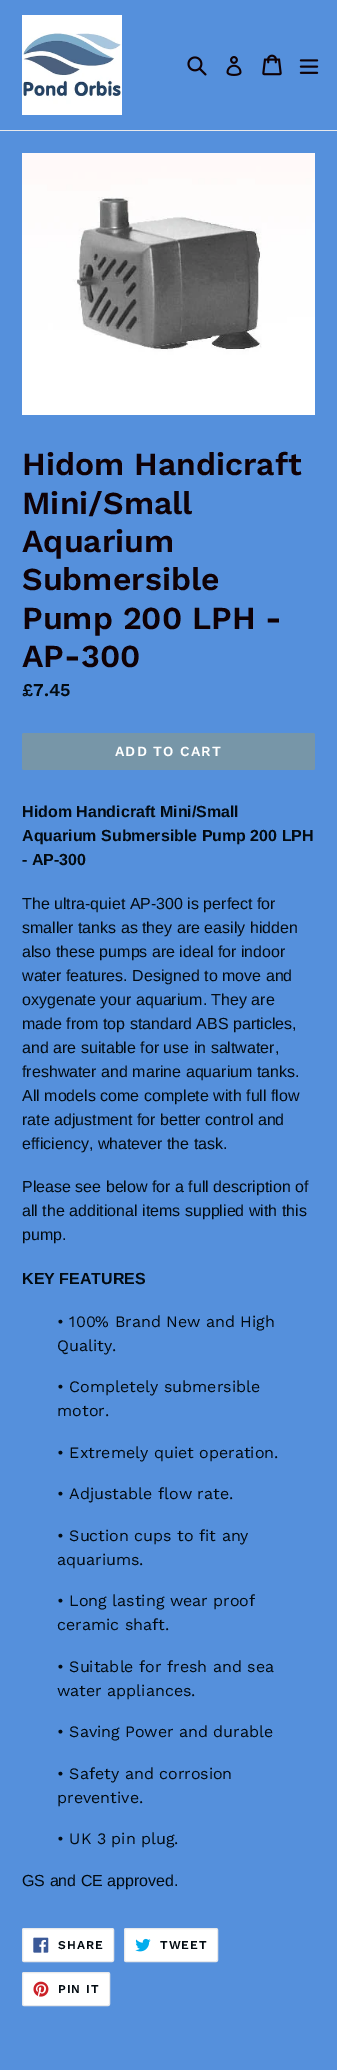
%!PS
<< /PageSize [337 2070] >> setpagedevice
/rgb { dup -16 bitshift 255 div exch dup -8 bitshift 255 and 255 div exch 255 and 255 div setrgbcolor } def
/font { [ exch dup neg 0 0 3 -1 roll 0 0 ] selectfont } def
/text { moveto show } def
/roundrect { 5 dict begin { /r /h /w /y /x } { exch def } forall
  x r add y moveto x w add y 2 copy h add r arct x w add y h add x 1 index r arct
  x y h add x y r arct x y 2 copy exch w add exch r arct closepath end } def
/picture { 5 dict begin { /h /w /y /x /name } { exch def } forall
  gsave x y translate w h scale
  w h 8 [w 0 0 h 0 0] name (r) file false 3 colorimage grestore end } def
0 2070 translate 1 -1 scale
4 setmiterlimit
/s1 { /WorkSans-SemiBold 32 font 16#0F0106 rgb } def
/s2 { /WorkSans-SemiBold 18 font 16#020B12 rgb } def
/s3 { /LiberationSans-Bold 16 font 16#020B12 rgb } def
/s4 { /LiberationSans-Regular 16 font 16#020B12 rgb } def
/s5 { /WorkSans-Regular 16 font 16#020B12 rgb } def
16#5590DC rgb
0 0 337 2070 rectfill
16#E8E9EB rgb
0 130 337 1 rectfill
(pic1.raw) 22 15 100 100 picture
(pic2.raw) 187 56 20 20 picture
(pic3.raw) 226 56 16 20 picture
(pic4.raw) 262 54 20 22 picture
(pic5.raw) 299 59 20 15 picture
(pic6.raw) 22 153 293 262 picture
s1
(Hidom Handicraft) 22 475 text
(Mini/Small) 22 514 text
(Aquarium) 22 552 text
(Submersible) 22 590 text
(Pump 200 LPH -) 22 629 text
(AP-300) 22 667 text
s2
(£7.45) 22 696 text
16#7796A8 rgb
22 733 293 37 2 roundrect fill
/WorkSans-SemiBold 14 font
16#FFFFFF rgb
115 756 moveto 1.1 0 (ADD TO CART) ashow
s3
(Hidom Handicraft Mini/Small) 22 817 text
(Aquarium Submersible Pump 200 LPH) 22 841 text
(- AP-300) 22 865 text
s4
(The ultra-quiet AP-300 is perfect for) 22 909 text
(smaller tanks as they are easily hidden) 22 933 text
(also these pumps are ideal for indoor) 22 957 text
(water features. Designed to move and) 22 981 text
(oxygenate your aquarium. They are) 22 1005 text
(made from top standard ABS particles,) 22 1029 text
(and are suitable for use in saltwater,) 22 1053 text
(freshwater and marine aquarium tanks.) 22 1077 text
(All models come complete with full flow) 22 1101 text
(rate adjustment for better control and) 22 1125 text
(efficiency, whatever the task.) 22 1149 text
(Please see below for a full description of) 22 1192 text
(all the additional items supplied with this) 22 1216 text
(pump.) 22 1240 text
s3
(KEY FEATURES) 22 1284 text
s5
(• 100% Brand New and High) 57 1327 text
(Quality.) 57 1351 text
(• Completely submersible) 57 1392 text
(motor.) 57 1416 text
(• Extremely quiet operation.) 57 1458 text
(• Adjustable flow rate.) 57 1499 text
(• Suction cups to fit any) 57 1541 text
(aquariums.) 57 1565 text
(• Long lasting wear proof) 57 1606 text
(ceramic shaft.) 57 1630 text
(• Suitable for fresh and sea) 57 1672 text
(water appliances.) 57 1696 text
(• Saving Power and durable) 57 1737 text
(• Safety and corrosion) 57 1779 text
(preventive.) 57 1803 text
(• UK 3 pin plug.) 57 1844 text
s4
(GS and CE approved.) 22 1886 text
16#FFFFFF rgb
22.5 1928.5 91 33 1.5 roundrect gsave fill grestore
16#E8E9EB rgb
stroke
(pic7.raw) 33 1937 16 16 picture
/WorkSans-SemiBold 12 font
16#020B12 rgb
58 1949 moveto 1 0 (SHARE) ashow
16#FFFFFF rgb
124.5 1928.5 93 33 1.5 roundrect gsave fill grestore
16#E8E9EB rgb
stroke
(pic8.raw) 135 1938 16 14 picture
16#020B12 rgb
160 1949 moveto 1 0 (TWEET) ashow
16#FFFFFF rgb
22.5 1972.5 87 33 1.5 roundrect gsave fill grestore
16#E8E9EB rgb
stroke
(pic9.raw) 33 1981 16 16 picture
16#020B12 rgb
58 1993 moveto 1 0 (PIN IT) ashow
showpage
